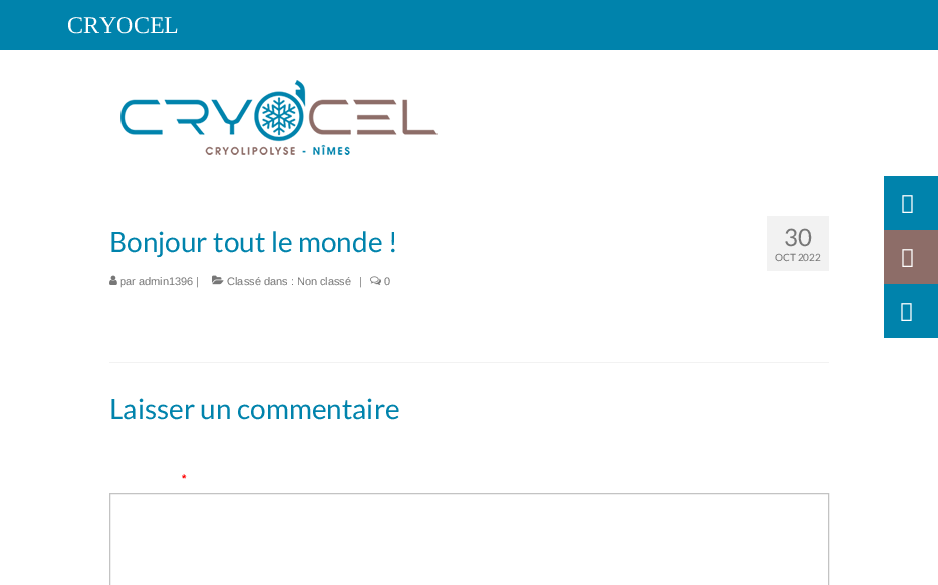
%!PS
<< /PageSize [938 585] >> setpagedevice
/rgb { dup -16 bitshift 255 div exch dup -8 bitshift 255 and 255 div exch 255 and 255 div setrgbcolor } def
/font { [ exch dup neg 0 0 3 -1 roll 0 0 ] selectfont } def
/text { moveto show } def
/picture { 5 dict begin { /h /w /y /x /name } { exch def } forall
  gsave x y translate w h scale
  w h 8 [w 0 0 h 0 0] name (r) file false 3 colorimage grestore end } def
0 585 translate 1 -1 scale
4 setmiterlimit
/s1 { /LiberationSerif-Regular 24 font 16#FFFFFF rgb } def
/s2 { /Lato-Regular 28 font 16#0083AC rgb } def
/s3 { /LiberationSans-Regular 11 font 16#777777 rgb } def
/s4 { /Lato-Regular 24 font 16#777777 rgb } def
/s5 { /Lato-Regular 10 font 16#777777 rgb } def
/s6 { /LiberationSans-Bold 11 font 16#FF0000 rgb } def
16#FFFFFF rgb
0 0 938 585 rectfill
16#0083AC rgb
0 0 938 50 rectfill
s1
(CRYOCEL) 67 33 text
(pic1.raw) 120 80 318 75 picture
s2
(Bonjour tout le monde !) 109 252 text
(pic2.raw) 109 275 8 10 picture
s3
(par admin1396 |) 120 285 text
(pic3.raw) 212 275 12 10 picture
(Classé dans : Non classé) 227 285 text
(|) 359 285 text
(pic4.raw) 370 276 11 9 picture
(0) 384 285 text
16#F2F2F2 rgb
767 216 62 55 rectfill
s4
(30) 784 246 text
s5
(OCT 2022) 775 261 text
16#F2F2F2 rgb
109 362 720 1 rectfill
s2
(Laisser un commentaire) 109 419 text
s6
(*) 182 482 text
16#C3C3C3 rgb
109.5 493.5 719 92 rectstroke
16#0083AC rgb
884 176 54 54 rectfill
(pic5.raw) 902 195 11 18 picture
16#8D6D68 rgb
884 230 54 54 rectfill
(pic6.raw) 902 249 11 18 picture
16#0083AC rgb
884 284 54 54 rectfill
(pic5.raw) 901 303 11 18 picture
showpage
